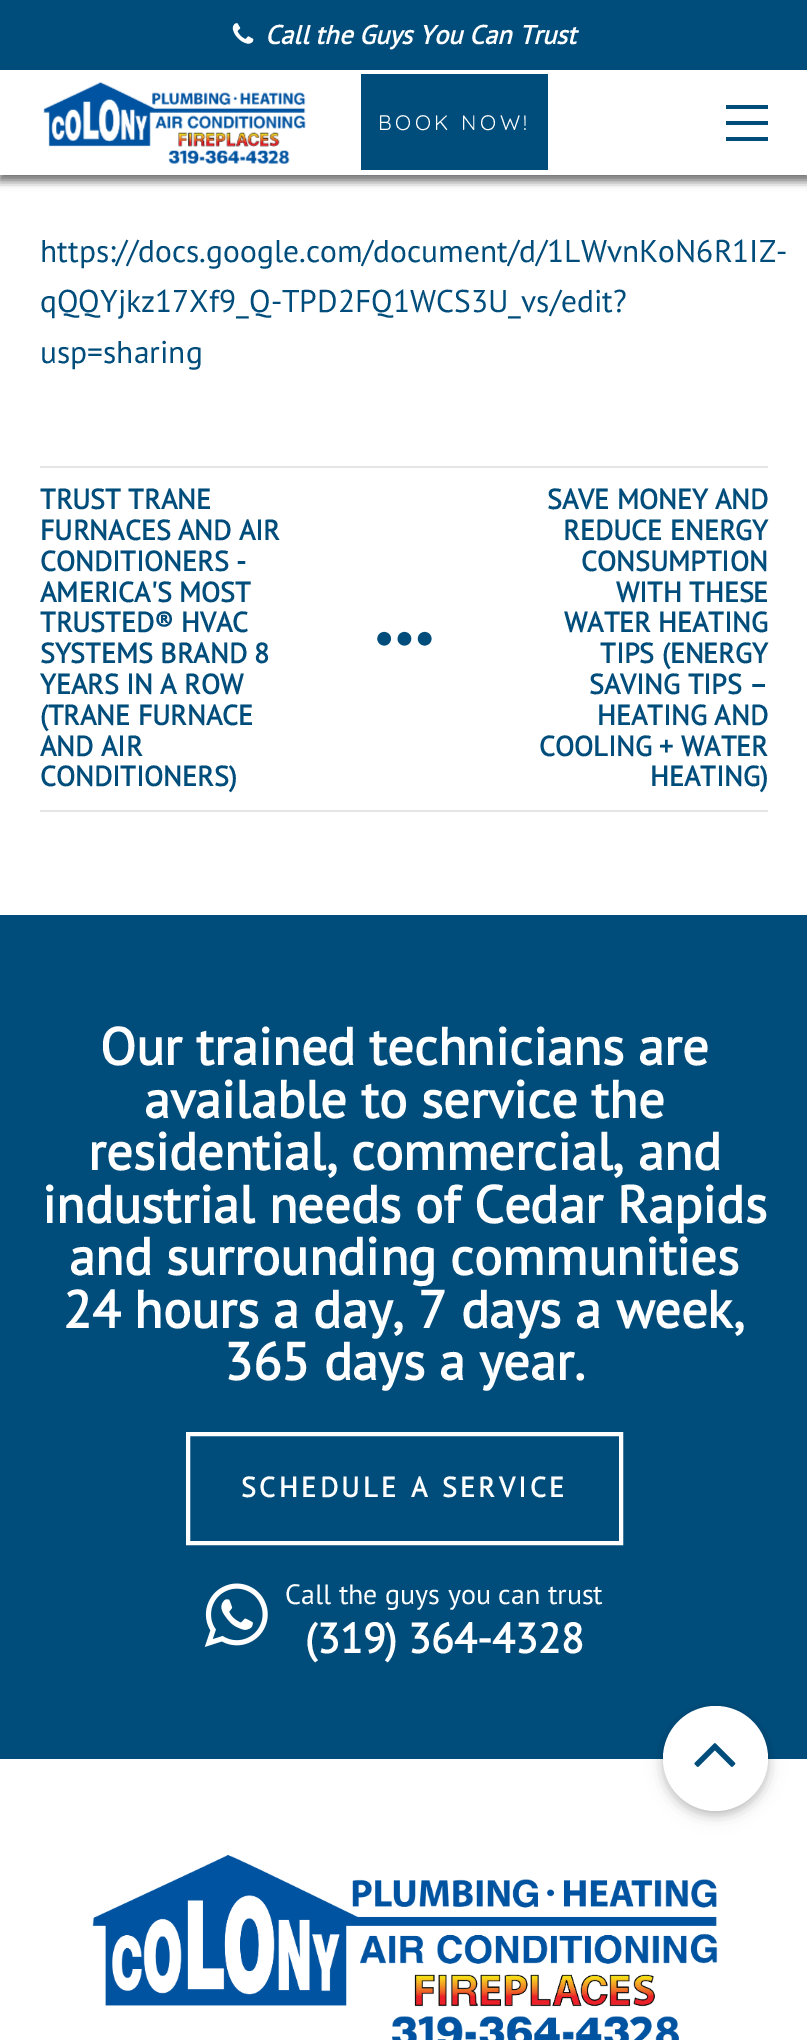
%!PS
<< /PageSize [807 2040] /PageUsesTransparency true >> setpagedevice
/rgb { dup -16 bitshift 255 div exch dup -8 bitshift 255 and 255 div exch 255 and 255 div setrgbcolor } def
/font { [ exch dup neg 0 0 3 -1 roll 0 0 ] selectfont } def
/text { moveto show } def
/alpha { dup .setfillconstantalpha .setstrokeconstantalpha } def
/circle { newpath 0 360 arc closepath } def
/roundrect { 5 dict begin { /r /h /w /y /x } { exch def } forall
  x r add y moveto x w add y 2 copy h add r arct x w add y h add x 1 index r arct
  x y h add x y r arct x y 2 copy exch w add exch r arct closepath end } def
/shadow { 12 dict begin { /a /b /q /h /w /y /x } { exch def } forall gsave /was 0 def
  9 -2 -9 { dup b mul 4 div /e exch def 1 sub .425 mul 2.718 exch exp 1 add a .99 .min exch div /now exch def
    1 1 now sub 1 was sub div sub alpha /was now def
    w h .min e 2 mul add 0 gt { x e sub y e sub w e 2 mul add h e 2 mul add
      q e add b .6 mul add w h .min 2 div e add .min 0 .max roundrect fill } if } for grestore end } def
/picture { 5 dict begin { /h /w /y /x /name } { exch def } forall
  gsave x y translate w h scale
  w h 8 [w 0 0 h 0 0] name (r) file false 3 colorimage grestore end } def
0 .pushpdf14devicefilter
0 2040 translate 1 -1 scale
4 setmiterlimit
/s1 { /PTSans-BoldItalic 26.25 font 16#FFFFFF rgb } def
/s2 { /PTSans-Regular 31.5 font 16#004D7B rgb } def
/s3 { /PTSans-Bold 28 font 16#004D7B rgb } def
/s4 { /PTSans-Bold 52.5 font 16#FFFFFF rgb } def
/s5 { /PTSans-Regular 28 font 16#FFFFFF rgb } def
/s6 { /PTSans-Bold 42 font 16#FFFFFF rgb } def
16#FFFFFF rgb
0 0 807 2040 rectfill
16#000000 rgb
0 -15 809 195 0 5 0.23 shadow
0 -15 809 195 0 5 0.16 shadow
16#FFFFFF rgb
0 70 807 105 rectfill
gsave
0 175 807 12 rectclip
16#000000 rgb
0 75 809 105 0 5 0.23 shadow
grestore
gsave
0 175 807 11 rectclip
16#000000 rgb
0 75 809 105 0 5 0.16 shadow
grestore
16#004D7B rgb
0 0 807 70 rectfill
(pic1.raw) 232 23 22 21 picture
s1
(Call the Guys You Can Trust) 265 44 text
(pic2.raw) 43 82 263 82 picture
16#004D7B rgb
361 74 187 96 rectfill
/Quicksand-Regular 21 font
16#FFFFFF rgb
378 130 moveto 3.5 0 (BOOK NOW!) ashow
16#004D7B rgb
726 105 42 4 rectfill
726 137 42 4 rectfill
726 121 42 4 rectfill
s2
(https://docs.google.com/document/d/1LWvnKoN6R1IZ-) 40 262 text
(qQQYjkz17Xf9_Q-TPD2FQ1WCS3U_vs/edit?) 40 312 text
(usp=sharing) 40 363 text
16#E6E6E6 rgb
40 466 728 2 rectfill
40 810 728 2 rectfill
s3
(TRUST TRANE) 40 509 text
(FURNACES AND AIR) 40 540 text
(CONDITIONERS -) 40 571 text
(AMERICA'S MOST) 40 602 text
(TRUSTED® HVAC) 40 632 text
(SYSTEMS BRAND 8) 40 663 text
(YEARS IN A ROW) 40 694 text
(\(TRANE FURNACE) 40 725 text
(AND AIR) 40 756 text
(CONDITIONERS\)) 40 786 text
(pic3.raw) 377 631 55 15 picture
(SAVE MONEY AND) 547 509 text
(REDUCE ENERGY) 563 540 text
(CONSUMPTION) 581 571 text
(WITH THESE) 616 602 text
(WATER HEATING) 564 632 text
(TIPS \(ENERGY) 600 663 text
(SAVING TIPS –) 589 694 text
(HEATING AND) 597 725 text
(COOLING + WATER) 539 756 text
(HEATING\)) 650 786 text
0 915 807 844 rectfill
s4
(Our trained technicians are) 100 1065 text
(available to service the) 144 1118 text
(residential, commercial, and) 88 1170 text
(industrial needs of Cedar Rapids) 42 1223 text
(and surrounding communities) 69 1275 text
(24 hours a day, 7 days a week,) 63 1328 text
(365 days a year.) 224 1380 text
4 setlinewidth
188 1434 433 109 rectstroke
/PTSans-Bold 28 font
241 1497 moveto 3.5 0 (SCHEDULE A SERVICE) ashow
(pic4.raw) 204 1583 64 64 picture
s5
(Call the guys you can trust) 285 1604 text
s6
(\(319\) 364-4328) 305 1653 text
16#000000 rgb
663 1710 105 105 52.5 9 0.12 shadow
663 1710 105 105 52.5 4.5 0.16 shadow
16#FFFFFF rgb
715.5 1758.5 52.5 circle fill
(pic5.raw) 694 1743 42 24 picture
(pic6.raw) 92 1855 626 185 picture
.poppdf14devicefilter showpage
